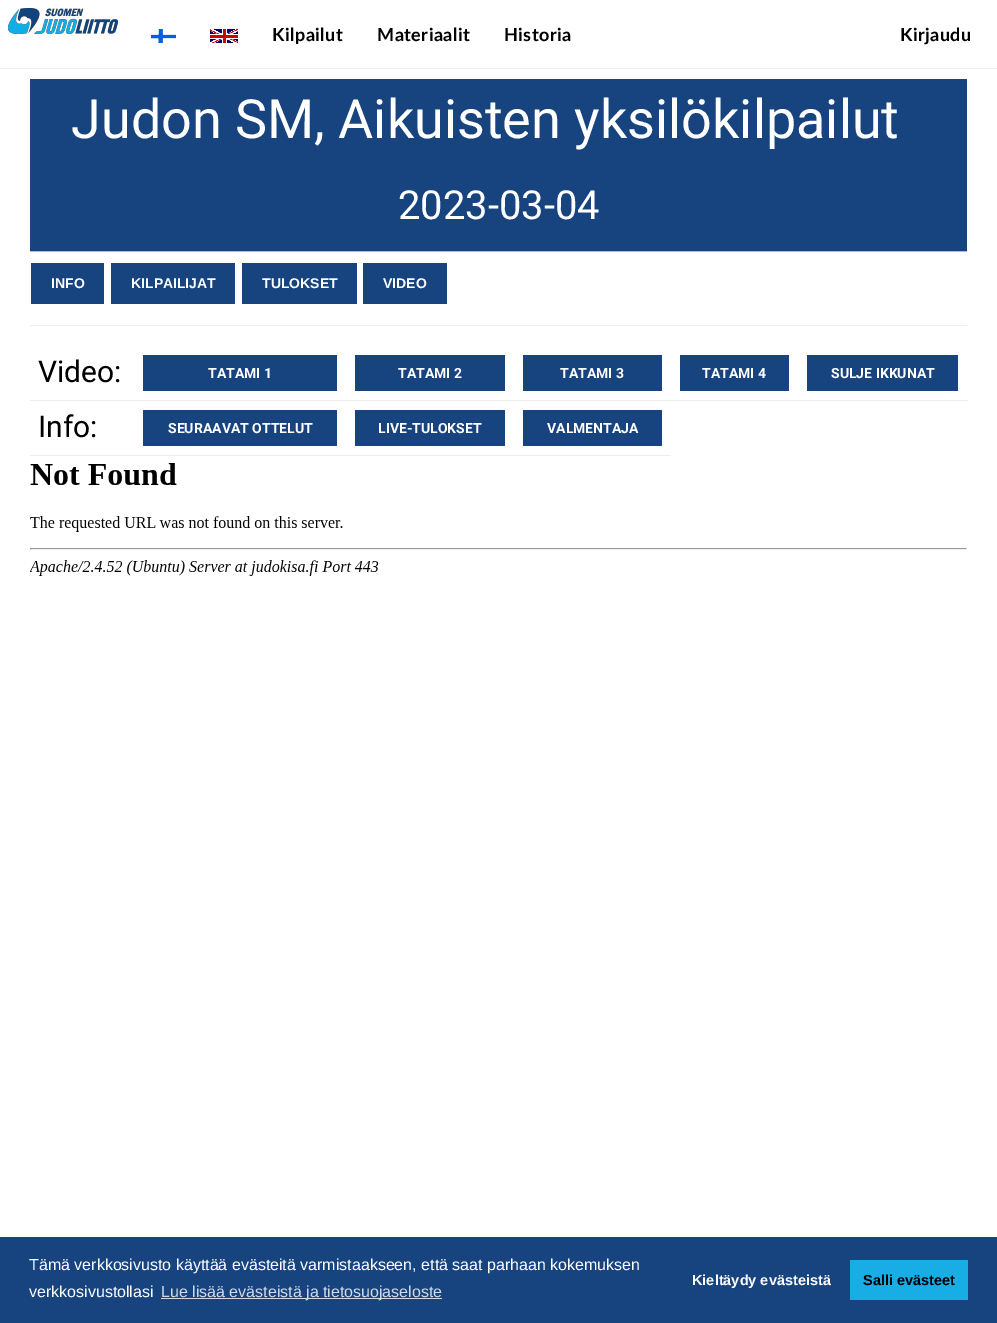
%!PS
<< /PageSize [997 1323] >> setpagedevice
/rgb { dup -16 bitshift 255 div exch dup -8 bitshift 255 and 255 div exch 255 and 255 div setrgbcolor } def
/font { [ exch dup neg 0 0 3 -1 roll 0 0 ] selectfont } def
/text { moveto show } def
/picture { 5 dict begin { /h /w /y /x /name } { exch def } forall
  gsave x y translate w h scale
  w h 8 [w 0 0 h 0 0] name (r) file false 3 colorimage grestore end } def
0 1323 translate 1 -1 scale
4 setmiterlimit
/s1 { /Roboto-Regular 54 font 16#FFFFFF rgb } def
/s2 { /Roboto-Regular 40 font 16#FFFFFF rgb } def
/s3 { /LiberationSans-Bold 14 font 16#FFFFFF rgb } def
/s4 { /Roboto-Regular 30 font 16#000000 rgb } def
/s5 { /Roboto-Bold 14 font 16#FFFFFF rgb } def
/s6 { /LiberationSans-Regular 16 font 16#FFFFFF rgb } def
/s7 { /LiberationSans-Regular 16 font 16#D1DAE5 rgb } def
/s8 { /LiberationSans-Bold 14.5 font 16#FFFFFF rgb } def
/s9 { /LiberationSans-Bold 14.5 font 16#000000 rgb } def
16#FFFFFF rgb
0 0 997 1323 rectfill
(pic1.raw) 8 8 110 26 picture
16#EEEEEE rgb
0 68 997 1 rectfill
(pic2.raw) 151 29 25 14 picture
(pic3.raw) 210 29 28 14 picture
/Lato-Bold 18 font
16#000000 rgb
272 41 moveto 0.5 0 (Kilpailut) ashow
377 41 moveto 0.5 0 (Materiaalit) ashow
504 41 moveto 0.5 0 (Historia) ashow
900 41 moveto 0.5 0 (Kirjaudu) ashow
16#17447F rgb
30 79 937 172 rectfill
16#BBBBBB rgb
30 251 937 1 rectfill
s1
(Judon SM, Aikuisten yksilökilpailut) 71 138 text
s2
(2023-03-04) 398 219 text
16#17447F rgb
31 263 73 41 rectfill
s3
(INFO) 51 288 text
16#17447F rgb
111 263 124 41 rectfill
s3
(KILPAILIJAT) 131 288 text
16#17447F rgb
242 263 115 41 rectfill
s3
(TULOKSET) 262 288 text
16#17447F rgb
363 263 84 41 rectfill
s3
(VIDEO) 383 288 text
16#EEEEEE rgb
30 325 937 1 rectfill
s4
(Video:) 38 382 text
16#17447F rgb
143 355 194 36 rectfill
s5
(TATAMI 1) 208 378 text
16#17447F rgb
355 355 150 36 rectfill
s5
(TATAMI 2) 398 378 text
16#17447F rgb
523 355 139 36 rectfill
s5
(TATAMI 3) 560 378 text
16#17447F rgb
680 355 109 36 rectfill
s5
(TATAMI 4) 702 378 text
16#EEEEEE rgb
30 400 938 1 rectfill
16#17447F rgb
807 355 151 36 rectfill
s5
(SULJE IKKUNAT) 831 378 text
s4
(Info:) 38 437 text
16#17447F rgb
143 410 194 36 rectfill
s5
(SEURAAVAT OTTELUT) 168 433 text
16#17447F rgb
355 410 150 36 rectfill
s5
(LIVE-TULOKSET) 378 433 text
16#EEEEEE rgb
30 455 641 1 rectfill
16#17447F rgb
523 410 139 36 rectfill
s5
(VALMENTAJA) 547 433 text
(pic4.raw) 30 463 937 113 picture
16#17447F rgb
0 1237 997 86 rectfill
s6
(Tämä verkkosivusto käyttää evästeitä varmistaakseen, että saat parhaan kokemuksen) 29 1270 text
(verkkosivustollasi) 29 1297 text
16#D1DAE5 rgb
161 1298 281 1 rectfill
(Lue lisää evästeistä ja tietosuojaseloste) 161 1297 text
s8
(Kieltäydy evästeistä) 692 1285 text
16#18ADE5 rgb
850 1260 118 40 rectfill
s9
(Salli evästeet) 863 1285 text
showpage
